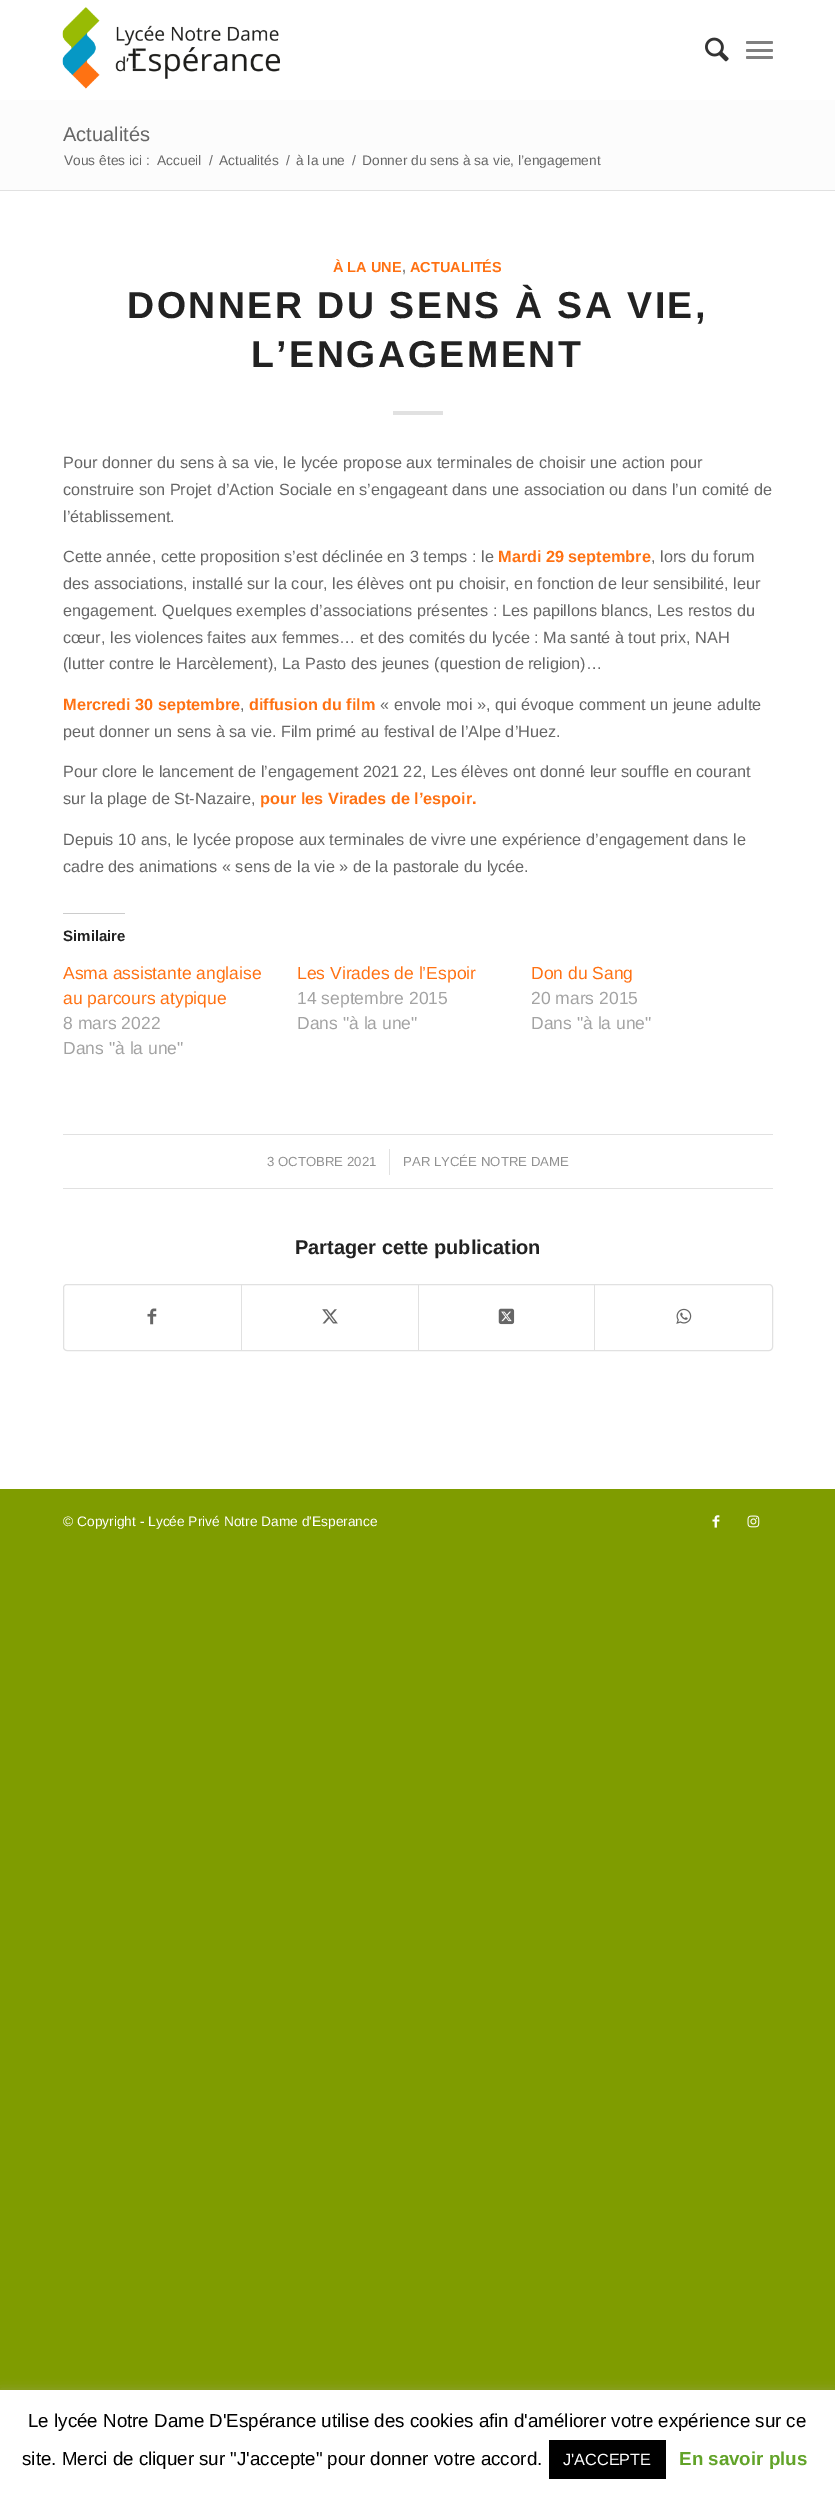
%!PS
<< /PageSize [835 2500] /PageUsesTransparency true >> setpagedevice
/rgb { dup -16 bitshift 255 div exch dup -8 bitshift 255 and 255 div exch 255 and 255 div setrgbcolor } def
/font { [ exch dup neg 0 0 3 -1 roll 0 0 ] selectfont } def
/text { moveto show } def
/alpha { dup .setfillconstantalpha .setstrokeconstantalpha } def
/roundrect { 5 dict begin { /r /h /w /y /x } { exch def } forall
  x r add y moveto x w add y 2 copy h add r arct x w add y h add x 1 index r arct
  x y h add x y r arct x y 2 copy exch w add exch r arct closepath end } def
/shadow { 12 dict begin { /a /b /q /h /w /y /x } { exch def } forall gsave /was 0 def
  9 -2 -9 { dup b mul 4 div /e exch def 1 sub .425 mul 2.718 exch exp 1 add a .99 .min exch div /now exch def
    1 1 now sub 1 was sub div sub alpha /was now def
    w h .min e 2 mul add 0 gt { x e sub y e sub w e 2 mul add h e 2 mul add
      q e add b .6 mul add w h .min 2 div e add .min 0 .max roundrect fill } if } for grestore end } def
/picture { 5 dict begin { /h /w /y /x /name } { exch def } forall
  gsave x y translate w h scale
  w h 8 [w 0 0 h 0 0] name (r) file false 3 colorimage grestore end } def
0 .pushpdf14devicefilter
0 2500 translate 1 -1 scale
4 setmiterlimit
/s1 { /LiberationSans-Regular 20 font 16#666666 rgb } def
/s2 { /LiberationSans-Regular 13.75 font 16#666666 rgb } def
/s3 { /LiberationSans-Bold 14.5 font 16#FF7112 rgb } def
/s4 { /LiberationSans-Bold 14.5 font 16#919191 rgb } def
/s5 { /LiberationSans-Regular 16.25 font 16#666666 rgb } def
/s6 { /LiberationSans-Bold 16.25 font 16#FF7112 rgb } def
/s7 { /LiberationSans-Bold 15 font 16#222222 rgb } def
/s8 { /LiberationSans-Regular 17.5 font 16#FF7112 rgb } def
/s9 { /LiberationSans-Regular 17.5 font 16#A3A3A3 rgb } def
/s10 { /LiberationSans-Regular 13.2 font 16#919191 rgb } def
/s11 { /LiberationSans-Bold 20 font 16#222222 rgb } def
/s12 { /LiberationSans-Regular 13.75 font 16#FFFFFF rgb } def
/s13 { /LiberationSans-Regular 18.75 font 16#000000 rgb } def
/s14 { /LiberationSans-Regular 16.25 font 16#FFFFFF rgb } def
/s15 { /LiberationSans-Bold 18.75 font 16#62A329 rgb } def
16#7F9C00 rgb
0 0 835 2500 rectfill
16#FFFFFF rgb
0 0 835 1489 rectfill
(pic1.raw) 62 7 218 82 picture
(pic2.raw) 705 37 24 25 picture
16#808080 rgb
746 49 27 3 1.5 roundrect fill
746 41 27 3 1.5 roundrect fill
746 56 27 3 1.5 roundrect fill
16#FCFCFC rgb
0 100 835 90 rectfill
s1
(Actualités) 63 141 text
s2
(Vous êtes ici :) 64 165 text
(Accueil) 157 165 text
(/) 209 165 text
(Actualités) 219 165 text
(/) 286 165 text
(à la une) 296 165 text
(/) 352 165 text
(Donner du sens à sa vie, l’engagement) 362 165 text
16#E1E1E1 rgb
0 190 835 1 rectfill
s3
(À LA UNE) 333 272 text
s4
(,) 402 272 text
s3
(ACTUALITÉS) 410 272 text
/LiberationSans-Bold 37.5 font
16#222222 rgb
127 318 moveto 2.5 0 (DONNER DU SENS À SA VIE,) ashow
251 367 moveto 2.5 0 (L’ENGAGEMENT) ashow
16#E1E1E1 rgb
393 411 50 4 rectfill
s5
(Pour donner du sens à sa vie, le lycée propose aux terminales de choisir une action pour) 63 468 text
(construire son Projet d’Action Sociale en s’engageant dans une association ou dans l’un comité de) 63 495 text
(l’établissement.) 63 522 text
(Cette année, cette proposition s’est déclinée en 3 temps : le) 63 562 text
s6
(Mardi 29 septembre) 498 562 text
s5
(, lors du forum) 651 562 text
(des associations, installé sur la cour, les élèves ont pu choisir, en fonction de leur sensibilité, leur) 63 589 text
(engagement. Quelques exemples d’associations présentes : Les papillons blancs, Les restos du) 63 616 text
(cœur, les violences faites aux femmes… et des comités du lycée : Ma santé à tout prix, NAH) 63 643 text
(\(lutter contre le Harcèlement\), La Pasto des jeunes \(question de religion\)…) 63 669 text
s6
(Mercredi 30 septembre) 63 710 text
s5
(,) 240 710 text
s6
(diffusion du film) 249 710 text
s5
(« envole moi », qui évoque comment un jeune adulte) 380 710 text
(peut donner un sens à sa vie. Film primé au festival de l’Alpe d’Huez.) 63 737 text
(Pour clore le lancement de l’engagement 2021 22, Les élèves ont donné leur souffle en courant) 63 777 text
(sur la plage de St-Nazaire,) 63 804 text
s6
(pour les Virades de l’espoir.) 260 804 text
s5
(Depuis 10 ans, le lycée propose aux terminales de vivre une expérience d’engagement dans le) 63 845 text
(cadre des animations « sens de la vie » de la pastorale du lycée.) 63 872 text
16#CCCCCC rgb
63 913 62 1 rectfill
s7
(Similaire) 63 941 text
s8
(Asma assistante anglaise) 63 979 text
(au parcours atypique) 63 1004 text
s9
(8 mars 2022) 63 1029 text
(Dans "à la une") 63 1054 text
s8
(Les Virades de l’Espoir) 297 979 text
s9
(14 septembre 2015) 297 1004 text
(Dans "à la une") 297 1029 text
s8
(Don du Sang) 531 979 text
s9
(20 mars 2015) 531 1004 text
(Dans "à la une") 531 1029 text
16#E1E1E1 rgb
63 1134 710 1 rectfill
63 1188 710 1 rectfill
s10
(3 OCTOBRE 2021) 267 1166 text
16#E1E1E1 rgb
389 1149 1 26 rectfill
s10
(PAR LYCÉE NOTRE DAME) 403 1166 text
s11
(Partager cette publication) 295 1254 text
16#E1E1E1 rgb
63.5 1284.5 709 66 3.5 roundrect stroke
(pic3.raw) 147 1308 10 17 picture
241 1285 1 65 rectfill
(pic4.raw) 322 1309 16 15 picture
418 1285 1 65 rectfill
(pic5.raw) 498 1308 17 17 picture
594 1285 1 65 rectfill
(pic6.raw) 676 1308 16 16 picture
s12
(© Copyright - Lycée Privé Notre Dame d'Esperance) 63 1526 text
(pic7.raw) 712 1515 8 13 picture
(pic8.raw) 747 1515 13 13 picture
16#ACABAB rgb
0 2389 835 110 0 6 0.3 shadow
16#FFFFFF rgb
0 2390 835 110 rectfill
s13
(Le lycée Notre Dame D'Espérance utilise des cookies afin d'améliorer votre expérience sur ce) 28 2427 text
(site. Merci de cliquer sur "J'accepte" pour donner votre accord.) 22 2465 text
549 2440 117 39 rectfill
s14
(J'ACCEPTE) 563 2465 text
s15
(En savoir plus) 679 2465 text
.poppdf14devicefilter showpage
